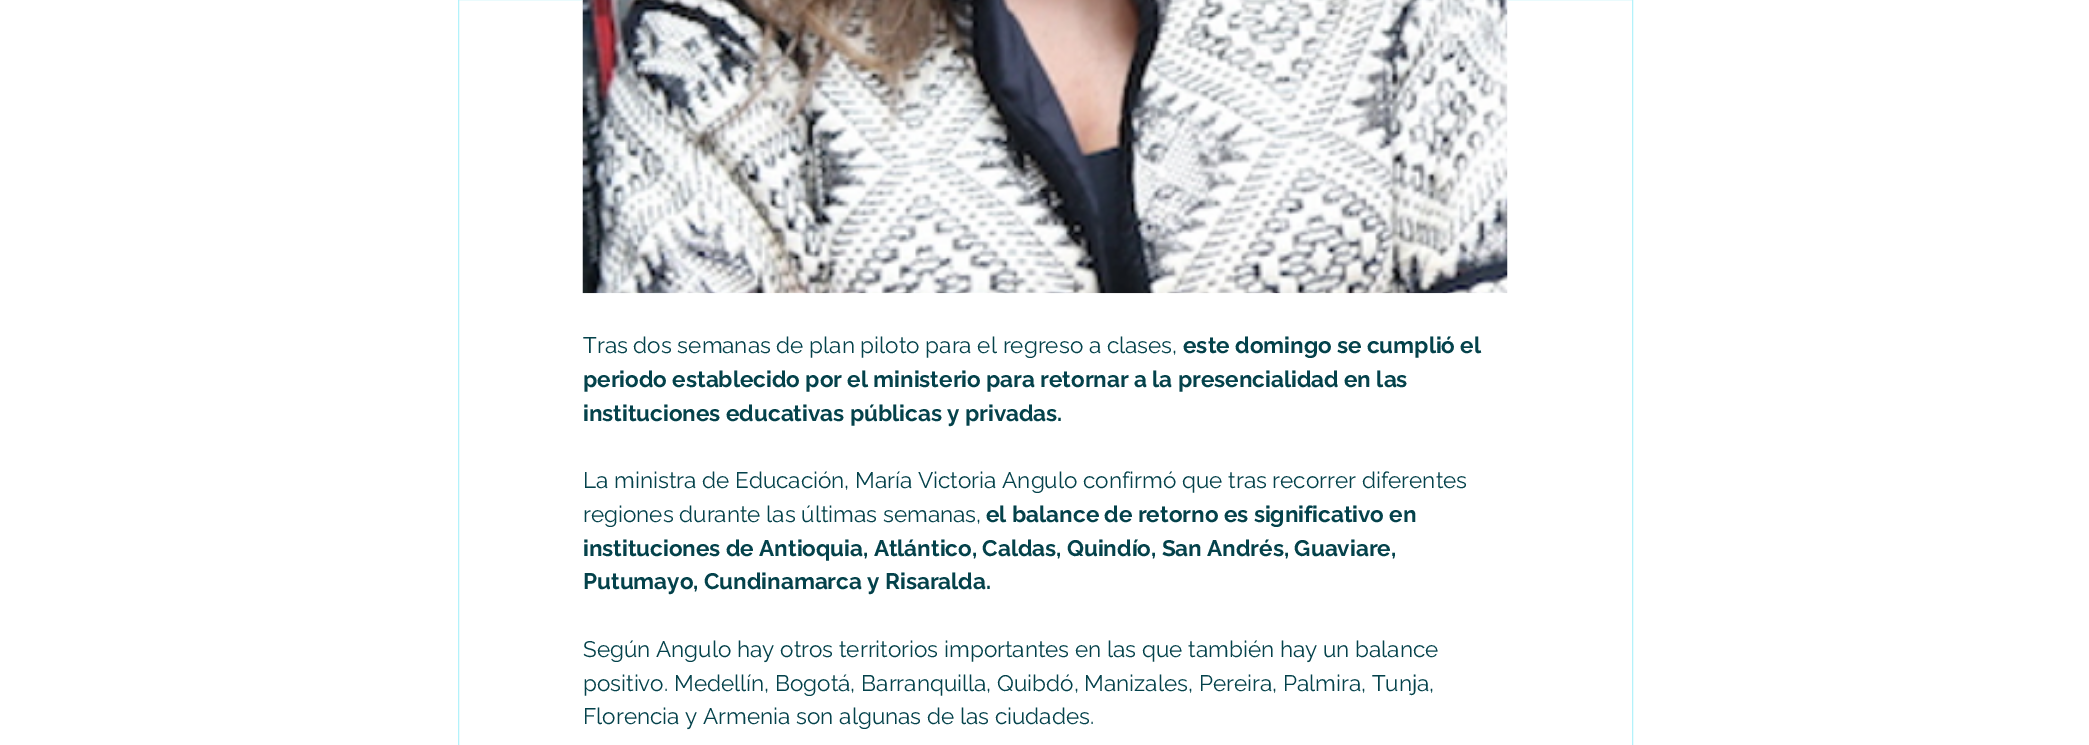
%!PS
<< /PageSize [2089 745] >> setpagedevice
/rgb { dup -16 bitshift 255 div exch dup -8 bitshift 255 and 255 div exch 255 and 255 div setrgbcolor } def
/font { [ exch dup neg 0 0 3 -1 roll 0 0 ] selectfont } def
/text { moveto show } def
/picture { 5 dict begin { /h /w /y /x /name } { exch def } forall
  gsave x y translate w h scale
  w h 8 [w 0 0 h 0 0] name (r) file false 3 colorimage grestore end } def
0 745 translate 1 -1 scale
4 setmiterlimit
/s1 { /Raleway-Regular 22.5 font 16#04424B rgb } def
/s2 { /Raleway-Bold 22.5 font 16#04424B rgb } def
16#FFFFFF rgb
0 0 2089 745 rectfill
16#B3F2FB rgb
458.5 -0.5 1174 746 rectstroke
(pic1.raw) 582 0 926 294 picture
s1
(Tras dos semanas de plan piloto para el regreso a clases,) 583 353 text
s2
(este domingo se cumplió el) 1183 353 text
(periodo establecido por el ministerio para retornar a la presencialidad en las) 583 387 text
(instituciones educativas públicas y privadas.) 583 421 text
s1
(La ministra de Educación, María Victoria Angulo confirmó que tras recorrer diferentes) 583 488 text
(regiones durante las últimas semanas,) 583 522 text
s2
(el balance de retorno es significativo en) 986 522 text
(instituciones de Antioquia, Atlántico, Caldas, Quindío, San Andrés, Guaviare,) 583 556 text
(Putumayo, Cundinamarca y Risaralda.) 583 589 text
s1
(Según Angulo hay otros territorios importantes en las que también hay un balance) 583 657 text
(positivo. Medellín, Bogotá, Barranquilla, Quibdó, Manizales, Pereira, Palmira, Tunja,) 583 691 text
(Florencia y Armenia son algunas de las ciudades.) 583 724 text
showpage
